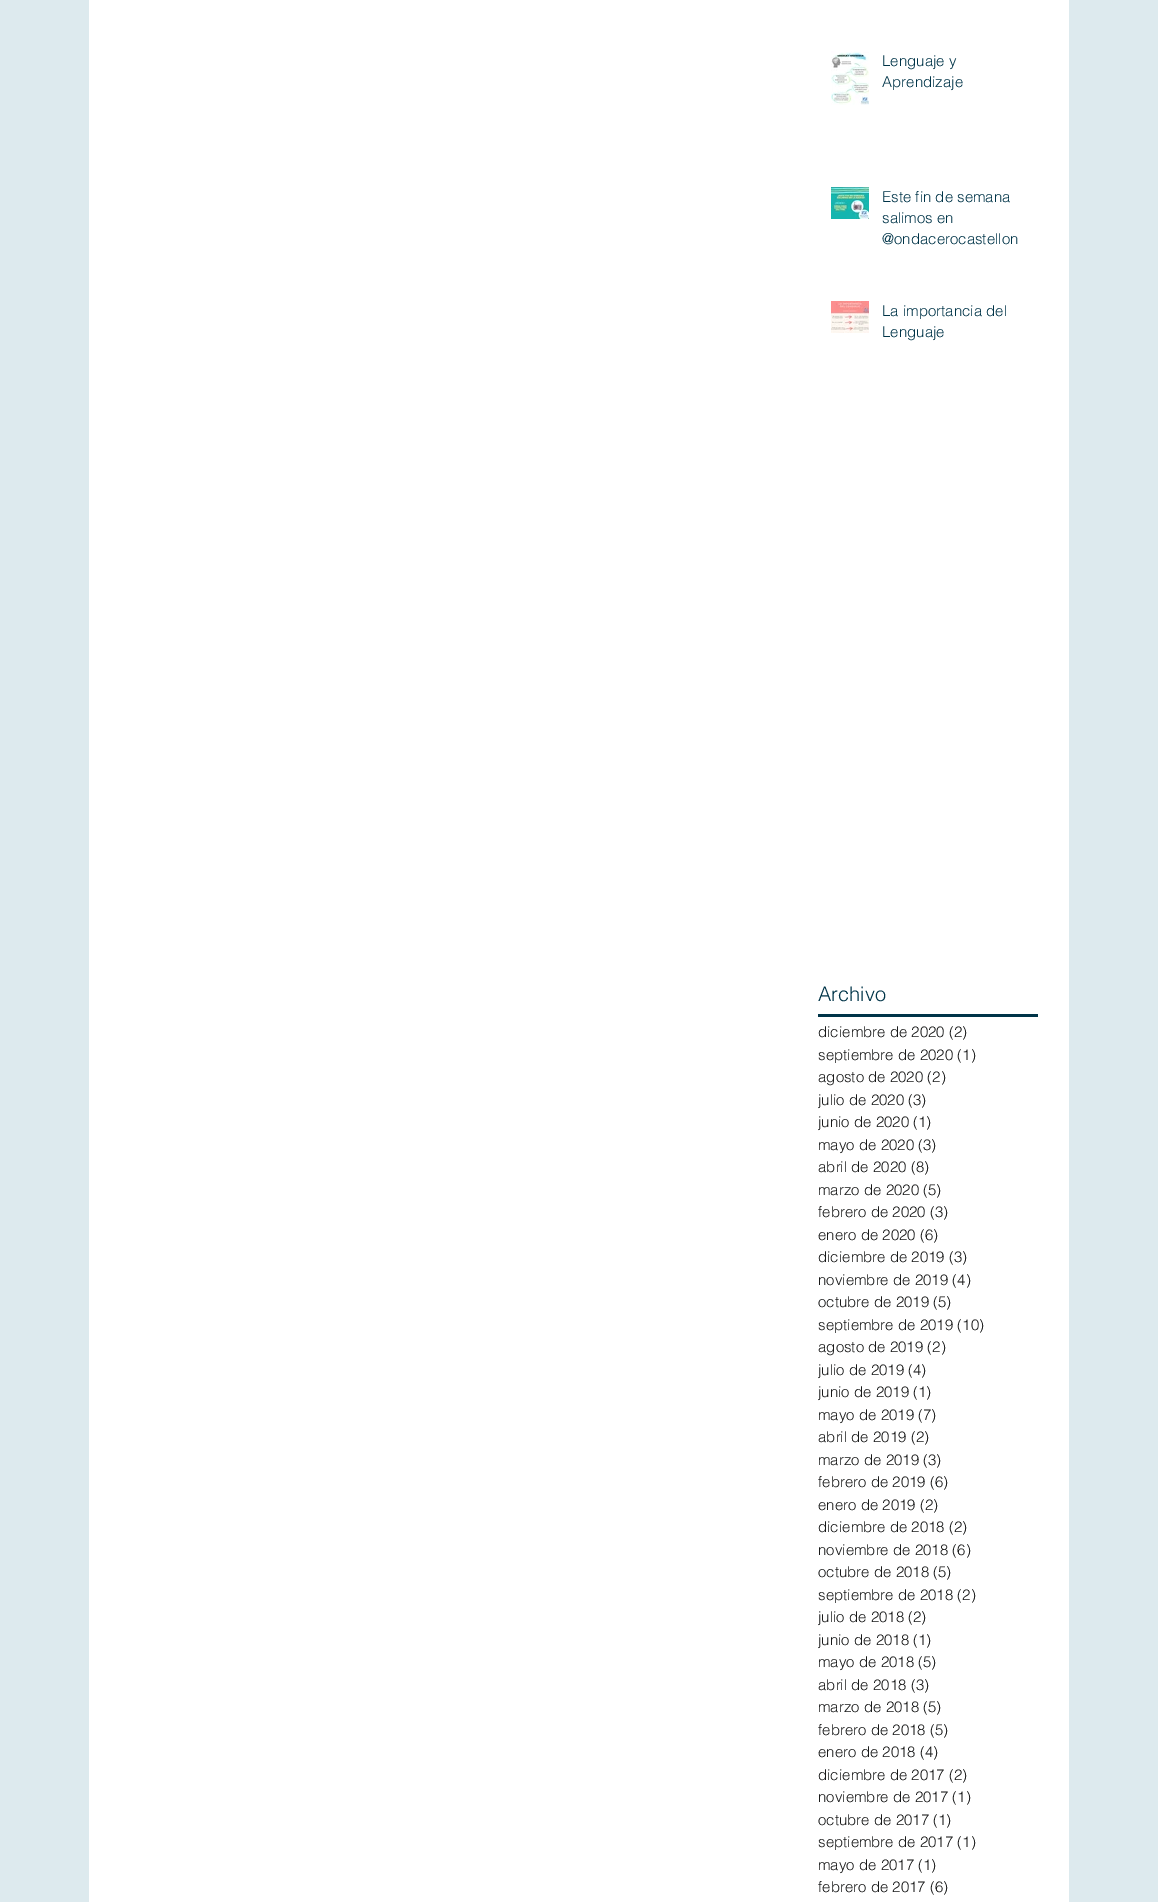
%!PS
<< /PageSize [1158 1902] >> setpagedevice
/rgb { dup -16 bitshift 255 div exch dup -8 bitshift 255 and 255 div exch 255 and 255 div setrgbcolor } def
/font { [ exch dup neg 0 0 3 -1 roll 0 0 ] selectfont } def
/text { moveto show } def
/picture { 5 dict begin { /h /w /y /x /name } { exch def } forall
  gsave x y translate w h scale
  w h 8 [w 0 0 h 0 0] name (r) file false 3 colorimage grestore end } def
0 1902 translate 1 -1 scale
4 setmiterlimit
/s1 { /helvetica-Light 15 font 16#003448 rgb } def
/s2 { /helvetica-Light 20 font 16#003448 rgb } def
/s3 { /helvetica-Light 15 font 16#181919 rgb } def
16#DDEAEE rgb
0 0 1158 1902 rectfill
16#FFFFFF rgb
89 0 980 1902 rectfill
(pic1.raw) 831 51 38 54 picture
s1
(Lenguaje y) 882 66 text
(Aprendizaje) 882 87 text
(pic2.raw) 831 187 38 32 picture
(Este fin de semana) 882 202 text
(salimos en) 882 223 text
(@ondacerocastellon) 882 244 text
(pic3.raw) 831 301 38 32 picture
(La importancia del) 882 316 text
(Lenguaje) 882 337 text
s2
(Archivo) 818 1001 text
818 1014 220 3 rectfill
s3
(diciembre de 2020 \(2\)) 818 1037 text
(septiembre de 2020 \(1\)) 818 1060 text
(agosto de 2020 \(2\)) 818 1082 text
(julio de 2020 \(3\)) 818 1105 text
(junio de 2020 \(1\)) 818 1127 text
(mayo de 2020 \(3\)) 818 1150 text
(abril de 2020 \(8\)) 818 1172 text
(marzo de 2020 \(5\)) 818 1195 text
(febrero de 2020 \(3\)) 818 1217 text
(enero de 2020 \(6\)) 818 1240 text
(diciembre de 2019 \(3\)) 818 1262 text
(noviembre de 2019 \(4\)) 818 1285 text
(octubre de 2019 \(5\)) 818 1307 text
(septiembre de 2019 \(10\)) 818 1330 text
(agosto de 2019 \(2\)) 818 1352 text
(julio de 2019 \(4\)) 818 1375 text
(junio de 2019 \(1\)) 818 1397 text
(mayo de 2019 \(7\)) 818 1420 text
(abril de 2019 \(2\)) 818 1442 text
(marzo de 2019 \(3\)) 818 1465 text
(febrero de 2019 \(6\)) 818 1487 text
(enero de 2019 \(2\)) 818 1510 text
(diciembre de 2018 \(2\)) 818 1532 text
(noviembre de 2018 \(6\)) 818 1555 text
(octubre de 2018 \(5\)) 818 1577 text
(septiembre de 2018 \(2\)) 818 1600 text
(julio de 2018 \(2\)) 818 1622 text
(junio de 2018 \(1\)) 818 1645 text
(mayo de 2018 \(5\)) 818 1667 text
(abril de 2018 \(3\)) 818 1690 text
(marzo de 2018 \(5\)) 818 1712 text
(febrero de 2018 \(5\)) 818 1735 text
(enero de 2018 \(4\)) 818 1757 text
(diciembre de 2017 \(2\)) 818 1780 text
(noviembre de 2017 \(1\)) 818 1802 text
(octubre de 2017 \(1\)) 818 1825 text
(septiembre de 2017 \(1\)) 818 1847 text
(mayo de 2017 \(1\)) 818 1870 text
(febrero de 2017 \(6\)) 818 1892 text
showpage
